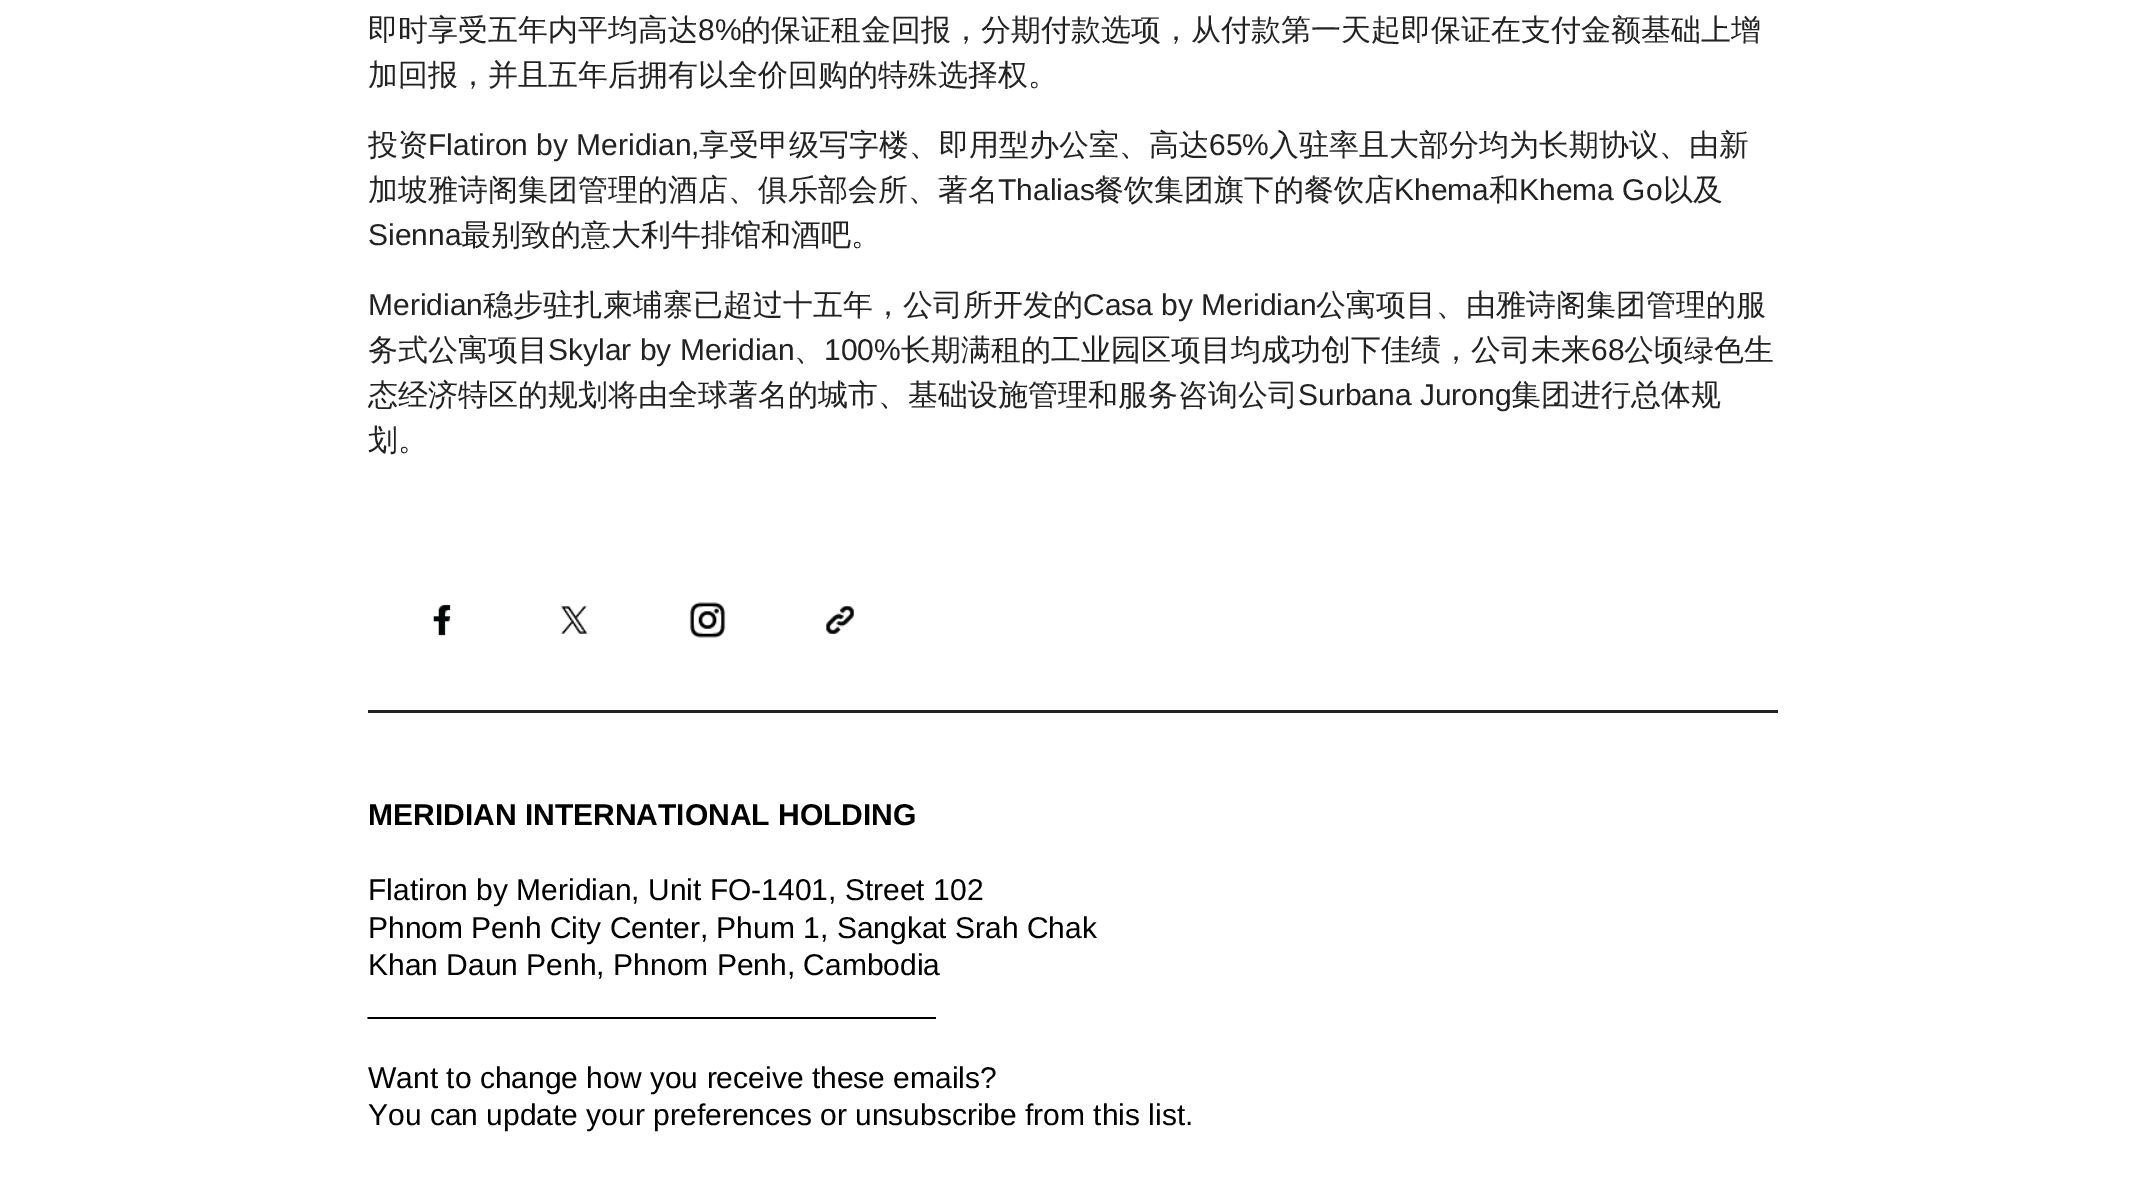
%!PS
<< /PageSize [2143 1178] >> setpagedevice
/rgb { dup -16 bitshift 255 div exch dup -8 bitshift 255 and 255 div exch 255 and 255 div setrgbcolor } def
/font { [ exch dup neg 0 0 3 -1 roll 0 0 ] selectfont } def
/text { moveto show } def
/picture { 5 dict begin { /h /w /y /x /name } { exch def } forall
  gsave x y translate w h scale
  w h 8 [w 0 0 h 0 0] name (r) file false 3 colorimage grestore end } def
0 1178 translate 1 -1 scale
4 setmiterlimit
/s1 { /WenQuanYiZenHei-Medium 30 font 16#222222 rgb } def
/s2 { /LiberationSans-Regular 30 font 16#222222 rgb } def
/s3 { /LiberationSans-Bold 30 font 16#000000 rgb } def
/s4 { /LiberationSans-Regular 30 font 16#000000 rgb } def
16#FFFFFF rgb
0 0 2143 1178 rectfill
s1
(即时享受五年内平均高达) 368 40 text
s2
(8%) 698 40 text
s1
(的保证租金回报，分期付款选项，从付款第一天起即保证在支付金额基础上增) 741 40 text
(加回报，并且五年后拥有以全价回购的特殊选择权。) 368 85 text
(投资) 368 155 text
s2
(Flatiron by Meridian,) 428 155 text
s1
(享受甲级写字楼、即用型办公室、高达) 699 155 text
s2
(65%) 1209 155 text
s1
(入驻率且大部分均为长期协议、由新) 1269 155 text
(加坡雅诗阁集团管理的酒店、俱乐部会所、著名) 368 200 text
s2
(Thalias) 998 200 text
s1
(餐饮集团旗下的餐饮店) 1094 200 text
s2
(Khema) 1394 200 text
s1
(和) 1489 200 text
s2
(Khema Go) 1519 200 text
s1
(以及) 1663 200 text
s2
(Sienna) 368 245 text
s1
(最别致的意大利牛排馆和酒吧。) 461 245 text
s2
(Meridian) 368 315 text
s1
(稳步驻扎柬埔寨已超过十五年，公司所开发的) 483 315 text
s2
(Casa by Meridian) 1083 315 text
s1
(公寓项目、由雅诗阁集团管理的服) 1316 315 text
(务式公寓项目) 368 360 text
s2
(Skylar by Meridian) 548 360 text
s1
(、) 794 360 text
s2
(100%) 824 360 text
s1
(长期满租的工业园区项目均成功创下佳绩，公司未来) 901 360 text
s2
(68) 1591 360 text
s1
(公顷绿色生) 1624 360 text
(态经济特区的规划将由全球著名的城市、基础设施管理和服务咨询公司) 368 405 text
s2
(Surbana Jurong) 1298 405 text
s1
(集团进行总体规) 1511 405 text
(划。) 368 450 text
(pic1.raw) 433 604 18 32 picture
(pic2.raw) 561 605 27 30 picture
(pic3.raw) 689 602 37 36 picture
(pic4.raw) 826 605 28 30 picture
368 710 1410 3 rectfill
s3
(MERIDIAN INTERNATIONAL HOLDING) 368 825 text
s4
(Flatiron by Meridian, Unit FO-1401, Street 102) 368 900 text
(Phnom Penh City Center, Phum 1, Sangkat Srah Chak) 368 938 text
(Khan Daun Penh, Phnom Penh, Cambodia) 368 975 text
(__________________________________) 368 1013 text
(Want to change how you receive these emails?) 368 1088 text
(You can update your preferences or unsubscribe from this list.) 368 1125 text
showpage
